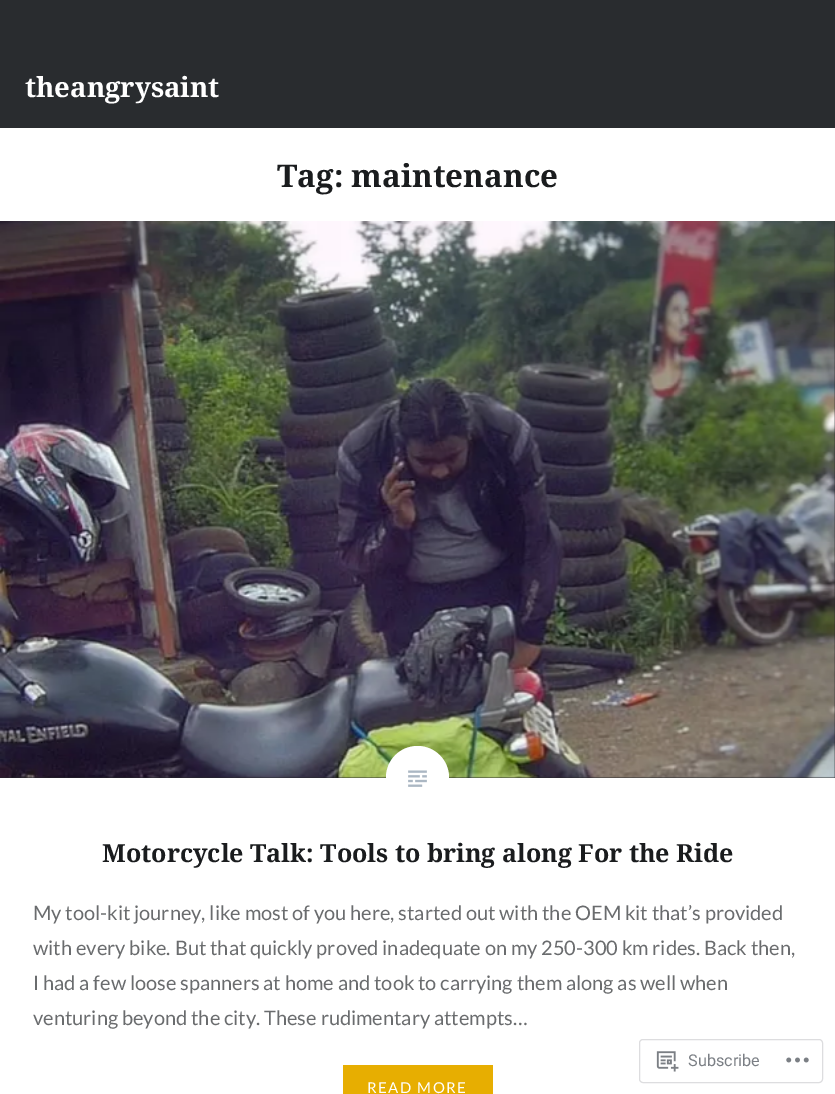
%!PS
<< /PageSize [835 1094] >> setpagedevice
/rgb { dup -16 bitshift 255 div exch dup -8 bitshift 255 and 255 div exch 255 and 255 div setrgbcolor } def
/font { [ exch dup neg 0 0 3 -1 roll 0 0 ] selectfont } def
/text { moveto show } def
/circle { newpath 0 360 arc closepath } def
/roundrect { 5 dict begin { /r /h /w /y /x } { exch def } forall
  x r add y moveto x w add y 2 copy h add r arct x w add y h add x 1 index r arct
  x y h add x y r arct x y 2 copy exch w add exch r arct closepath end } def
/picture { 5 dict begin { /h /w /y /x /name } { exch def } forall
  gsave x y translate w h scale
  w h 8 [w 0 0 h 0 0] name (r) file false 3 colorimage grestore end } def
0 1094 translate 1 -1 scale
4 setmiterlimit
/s1 { /NotoSerif-Bold 27.5 font 16#FFFFFF rgb } def
/s2 { /NotoSerif-Bold 31.25 font 16#1A1C1E rgb } def
/s3 { /NotoSerif-Bold 25 font 16#1A1C1E rgb } def
/s4 { /Lato-Regular 20 font 16#6A6C6E rgb } def
/s5 { /Roboto-Regular 16.25 font 16#7B7F85 rgb } def
16#FFFFFF rgb
0 0 835 1094 rectfill
16#292C2F rgb
0 0 835 128 rectfill
s1
(theangrysaint) 25 97 text
s2
(Tag: maintenance) 277 187 text
16#242629 rgb
0 221 835 557 rectfill
(pic1.raw) 0 221 835 557 picture
16#FFFFFF rgb
417.5 777.5 31.5 circle fill
(pic2.raw) 408 770 19 17 picture
s3
(Motorcycle Talk: Tools to bring along For the Ride) 102 862 text
s4
(My tool-kit journey, like most of you here, started out with the OEM kit that’s provided) 33 920 text
(with every bike. But that quickly proved inadequate on my 250-300 km rides. Back then,) 33 955 text
(I had a few loose spanners at home and took to carrying them along as well when) 33 990 text
(venturing beyond the city. These rudimentary attempts…) 33 1025 text
16#E7AE01 rgb
343 1065 150 29 rectfill
/Lato-Regular 15 font
16#FFFFFF rgb
367 1093 moveto 1.5 0 (READ MORE) ashow
16#DDDDDF rgb
639.5 1039.5 183 43 3.5 roundrect stroke
(pic3.raw) 656 1051 23 21 picture
s5
(Subscribe) 688 1066 text
(pic4.raw) 786 1057 23 6 picture
showpage
